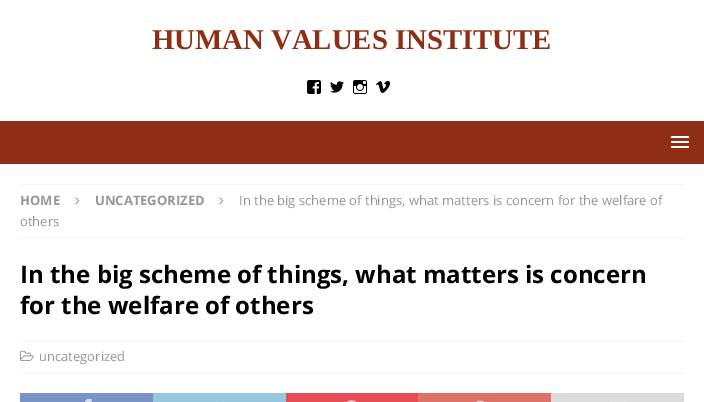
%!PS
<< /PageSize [704 402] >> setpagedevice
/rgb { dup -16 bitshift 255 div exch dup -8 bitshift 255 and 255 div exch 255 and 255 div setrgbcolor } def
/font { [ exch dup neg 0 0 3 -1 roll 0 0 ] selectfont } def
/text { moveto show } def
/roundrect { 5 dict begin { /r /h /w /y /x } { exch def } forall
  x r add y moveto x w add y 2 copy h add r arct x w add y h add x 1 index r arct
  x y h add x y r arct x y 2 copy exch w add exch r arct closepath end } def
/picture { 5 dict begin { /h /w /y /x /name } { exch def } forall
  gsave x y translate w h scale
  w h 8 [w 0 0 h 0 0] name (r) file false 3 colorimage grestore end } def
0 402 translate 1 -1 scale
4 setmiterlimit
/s1 { /LiberationSerif-Bold 28.75 font 16#8F2E14 rgb } def
/s2 { /OpenSans-Bold 13 font 16#979797 rgb } def
/s3 { /OpenSans-Regular 13 font 16#979797 rgb } def
/s4 { /OpenSans-Bold 24 font 16#000000 rgb } def
16#FFFFFF rgb
0 0 704 402 rectfill
s1
(HUMAN VALUES INSTITUTE) 152 49 text
(pic1.raw) 307 80 14 14 picture
(pic2.raw) 330 81 14 12 picture
(pic3.raw) 353 80 14 14 picture
(pic4.raw) 376 81 14 12 picture
0 121 704 43 rectfill
16#FFFFFF rgb
671 136 18 2 1 roundrect fill
671 141 18 2 1 roundrect fill
671 146 18 2 1 roundrect fill
16#EBEBEB rgb
[1 1] 0 setdash
20 184.5 moveto 684 184.5 lineto stroke
20 237.5 moveto 684 237.5 lineto stroke
s2
(HOME) 20 205 text
(pic5.raw) 75 197 5 8 picture
(UNCATEGORIZED) 95 205 text
(pic5.raw) 219 197 5 8 picture
s3
(In the big scheme of things, what matters is concern for the welfare of) 239 205 text
(others) 20 226 text
s4
(In the big scheme of things, what matters is concern) 20 283 text
(for the welfare of others) 20 314 text
16#EBEBEB rgb
20 340.5 moveto 684 340.5 lineto stroke
20 372.5 moveto 684 372.5 lineto stroke
(pic6.raw) 20 350 14 11 picture
s3
(uncategorized) 39 361 text
16#7893C6 rgb
20 393 133 9 rectfill
(pic7.raw) 85 398 7 4 picture
16#97C6DF rgb
153 393 133 9 rectfill
(pic8.raw) 221 401 3 1 picture
16#E84D56 rgb
286 393 132 9 rectfill
(pic9.raw) 346 400 11 2 picture
16#DC7268 rgb
418 393 133 9 rectfill
(pic10.raw) 476 400 9 2 picture
16#DBDBDB rgb
551 393 133 9 rectfill
(pic11.raw) 609 401 18 1 picture
showpage
